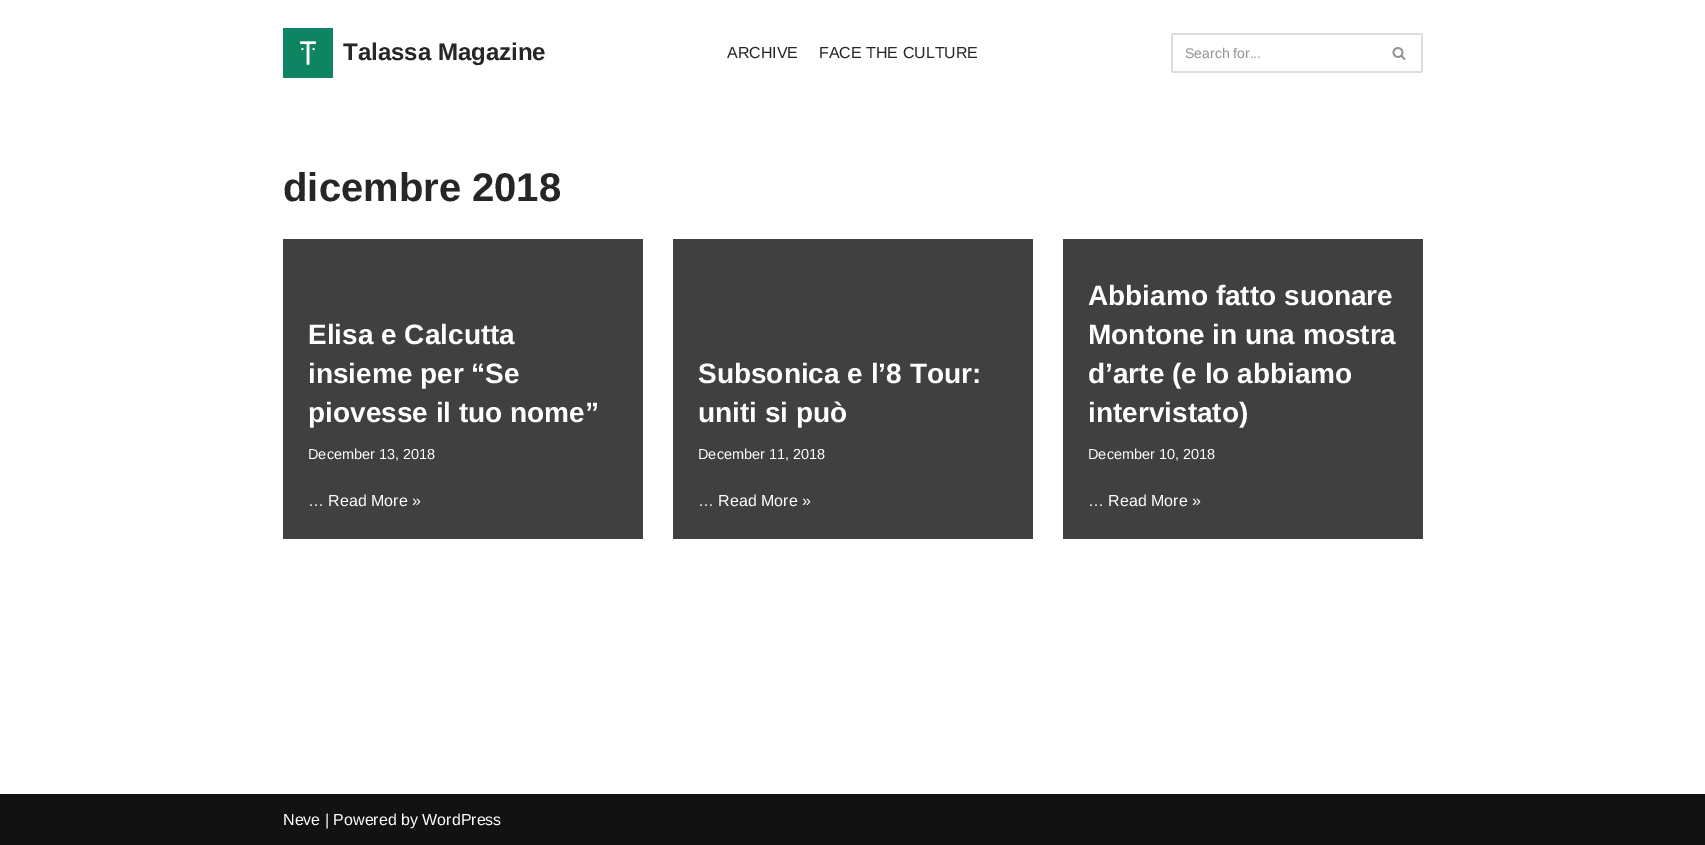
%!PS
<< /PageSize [1705 845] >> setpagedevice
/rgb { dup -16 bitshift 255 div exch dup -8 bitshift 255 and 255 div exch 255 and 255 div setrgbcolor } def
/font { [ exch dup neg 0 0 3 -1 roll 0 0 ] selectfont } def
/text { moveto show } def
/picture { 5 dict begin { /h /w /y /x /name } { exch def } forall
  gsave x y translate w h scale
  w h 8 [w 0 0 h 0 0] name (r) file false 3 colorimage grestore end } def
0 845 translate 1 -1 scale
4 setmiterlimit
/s1 { /LiberationSans-Bold 24 font 16#272626 rgb } def
/s2 { /LiberationSans-Regular 16 font 16#272626 rgb } def
/s3 { /LiberationSans-Regular 14 font 16#939393 rgb } def
/s4 { /LiberationSans-Bold 40 font 16#272626 rgb } def
/s5 { /LiberationSans-Bold 28 font 16#FFFFFF rgb } def
/s6 { /LiberationSans-Regular 14.5 font 16#FFFFFF rgb } def
/s7 { /LiberationSans-Regular 16 font 16#FFFFFF rgb } def
16#FFFFFF rgb
0 0 1705 845 rectfill
(pic1.raw) 283 28 50 50 picture
s1
(Talassa Magazine) 343 60 text
s2
(ARCHIVE) 727 58 text
(FACE THE CULTURE) 819 58 text
16#DDDDDD rgb
1172 33 250 2 rectfill
1172 71 206 2 rectfill
1171 34 2 38 rectfill
s3
(Search for...) 1185 58 text
16#DDDDDD rgb
1421 34 2 38 rectfill
1378 71 44 2 rectfill
(pic2.raw) 1392 47 14 13 picture
s4
(dicembre 2018) 283 201 text
16#404040 rgb
283 239 360 300 rectfill
s5
(Elisa e Calcutta) 308 344 text
(insieme per “Se) 308 383 text
(piovesse il tuo nome”) 308 422 text
s6
(December 13, 2018) 308 459 text
s7
(… Read More ») 308 506 text
16#404040 rgb
673 239 360 300 rectfill
s5
(Subsonica e l’8 Tour:) 698 383 text
(uniti si può) 698 422 text
s6
(December 11, 2018) 698 459 text
s7
(… Read More ») 698 506 text
16#404040 rgb
1063 239 360 300 rectfill
s5
(Abbiamo fatto suonare) 1088 305 text
(Montone in una mostra) 1088 344 text
(d’arte \(e lo abbiamo) 1088 383 text
(intervistato\)) 1088 422 text
s6
(December 10, 2018) 1088 459 text
s7
(… Read More ») 1088 506 text
16#121212 rgb
0 794 1705 51 rectfill
s7
(Neve | Powered by WordPress) 283 825 text
showpage
